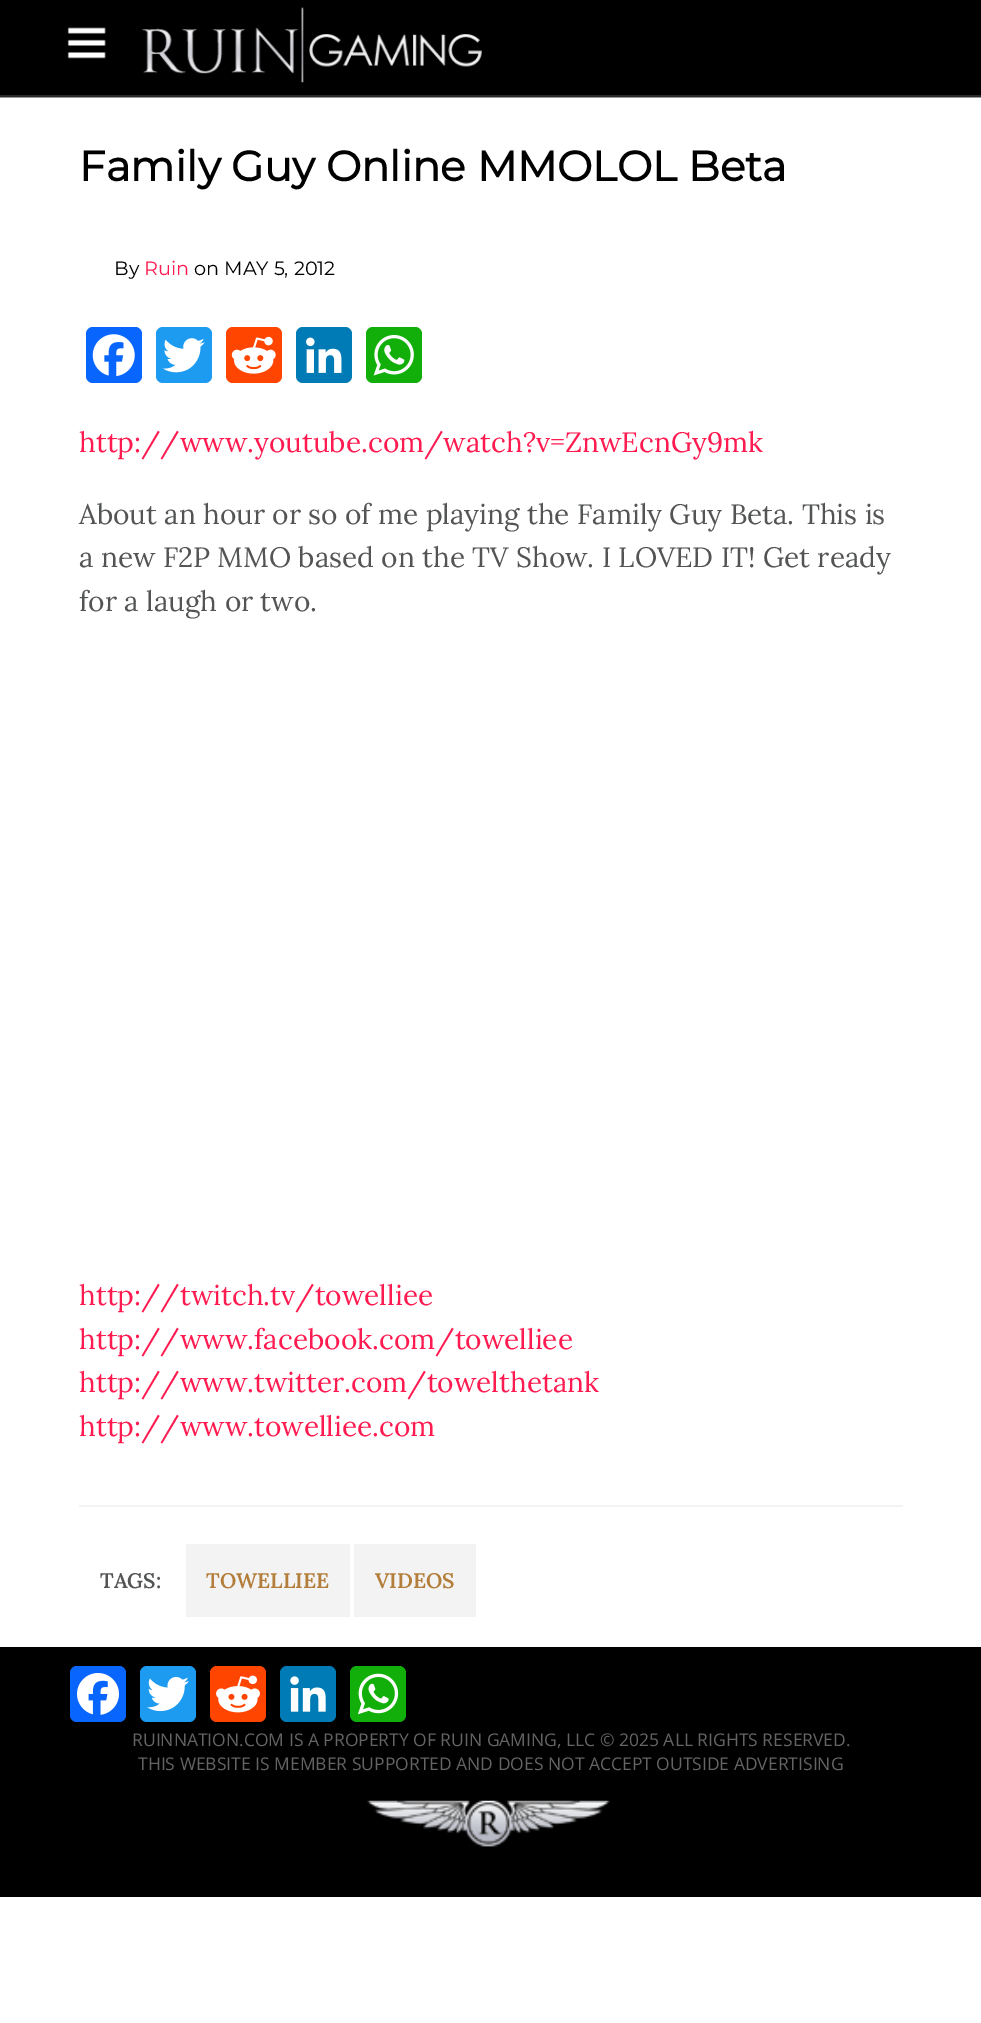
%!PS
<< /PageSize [981 2023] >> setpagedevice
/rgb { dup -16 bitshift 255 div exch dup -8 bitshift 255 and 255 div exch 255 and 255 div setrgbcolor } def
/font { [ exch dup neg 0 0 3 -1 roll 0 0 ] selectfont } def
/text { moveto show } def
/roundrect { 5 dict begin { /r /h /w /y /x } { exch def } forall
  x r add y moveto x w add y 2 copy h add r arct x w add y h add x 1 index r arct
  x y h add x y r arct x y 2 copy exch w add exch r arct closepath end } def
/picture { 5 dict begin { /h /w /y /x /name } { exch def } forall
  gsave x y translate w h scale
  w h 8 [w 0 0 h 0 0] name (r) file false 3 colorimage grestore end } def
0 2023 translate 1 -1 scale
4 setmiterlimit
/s1 { /Montserrat-Bold 42 font 16#000000 rgb } def
/s2 { /Montserrat-Thin 19.25 font 16#000000 rgb } def
/s3 { /Montserrat-Thin 19.25 font 16#FF1A50 rgb } def
/s4 { /Lora-Regular 28 font 16#FF1A50 rgb } def
/s5 { /Lora-Regular 28 font 16#535454 rgb } def
/s6 { /Lora-SemiBold 21 font 16#535454 rgb } def
/s7 { /Lora-SemiBold 21 font 16#B37E3B rgb } def
/s8 { /OpenSans-Regular 17.5 font 16#646464 rgb } def
16#FFFFFF rgb
0 0 981 2023 rectfill
16#999999 rgb
0 97 981 1 rectfill
16#000000 rgb
0 0 981 95 rectfill
16#2A2A2A rgb
0 95 981 2 rectfill
(pic1.raw) 67 27 39 32 picture
(pic2.raw) 142 7 340 76 picture
s1
(Family Guy Online MMOLOL Beta) 79 181 text
s2
(By) 114 275 text
s3
(Ruin) 144 275 text
s2
(on MAY 5, 2012) 194 275 text
16#0866FF rgb
86 327 56 56 7 roundrect fill
(pic3.raw) 92 334 43 43 picture
16#1D9BF0 rgb
156 327 56 56 7 roundrect fill
(pic4.raw) 163 338 42 35 picture
16#FF4500 rgb
226 327 56 56 7 roundrect fill
(pic5.raw) 231 336 45 38 picture
16#007BB5 rgb
296 327 56 56 7 roundrect fill
(pic6.raw) 306 337 36 36 picture
16#12AF0A rgb
366 327 56 56 7 roundrect fill
(pic7.raw) 373 335 41 41 picture
s4
(http://www.youtube.com/watch?v=ZnwEcnGy9mk) 79 452 text
s5
(About an hour or so of me playing the Family Guy Beta. This is) 79 524 text
(a new F2P MMO based on the TV Show. I LOVED IT! Get ready) 79 567 text
(for a laugh or two.) 79 611 text
s4
(http://twitch.tv/towelliee) 79 1305 text
(http://www.facebook.com/towelliee) 79 1349 text
(http://www.twitter.com/towelthetank) 79 1392 text
(http://www.towelliee.com) 79 1436 text
16#F3F3F3 rgb
79 1505 824 2 rectfill
s6
(TAGS:) 100 1588 text
16#F3F3F3 rgb
186 1544 164 73 rectfill
s7
(TOWELLIEE) 206 1588 text
16#F3F3F3 rgb
354 1544 122 73 rectfill
s7
(VIDEOS) 375 1588 text
16#000000 rgb
0 1647 981 250 rectfill
16#0866FF rgb
70 1666 56 56 7 roundrect fill
(pic8.raw) 77 1673 42 42 picture
16#1D9BF0 rgb
140 1666 56 56 7 roundrect fill
(pic9.raw) 147 1676 42 36 picture
16#FF4500 rgb
210 1666 56 56 7 roundrect fill
(pic10.raw) 216 1675 44 38 picture
16#007BB5 rgb
280 1666 56 56 7 roundrect fill
(pic11.raw) 290 1676 36 36 picture
16#12AF0A rgb
350 1666 56 56 7 roundrect fill
(pic12.raw) 358 1673 41 42 picture
s8
(RUINNATION.COM IS A PROPERTY OF RUIN GAMING, LLC © 2025 ALL RIGHTS RESERVED.) 132 1746 text
(THIS WEBSITE IS MEMBER SUPPORTED AND DOES NOT ACCEPT OUTSIDE ADVERTISING) 138 1770 text
(pic13.raw) 367 1800 243 47 picture
showpage
